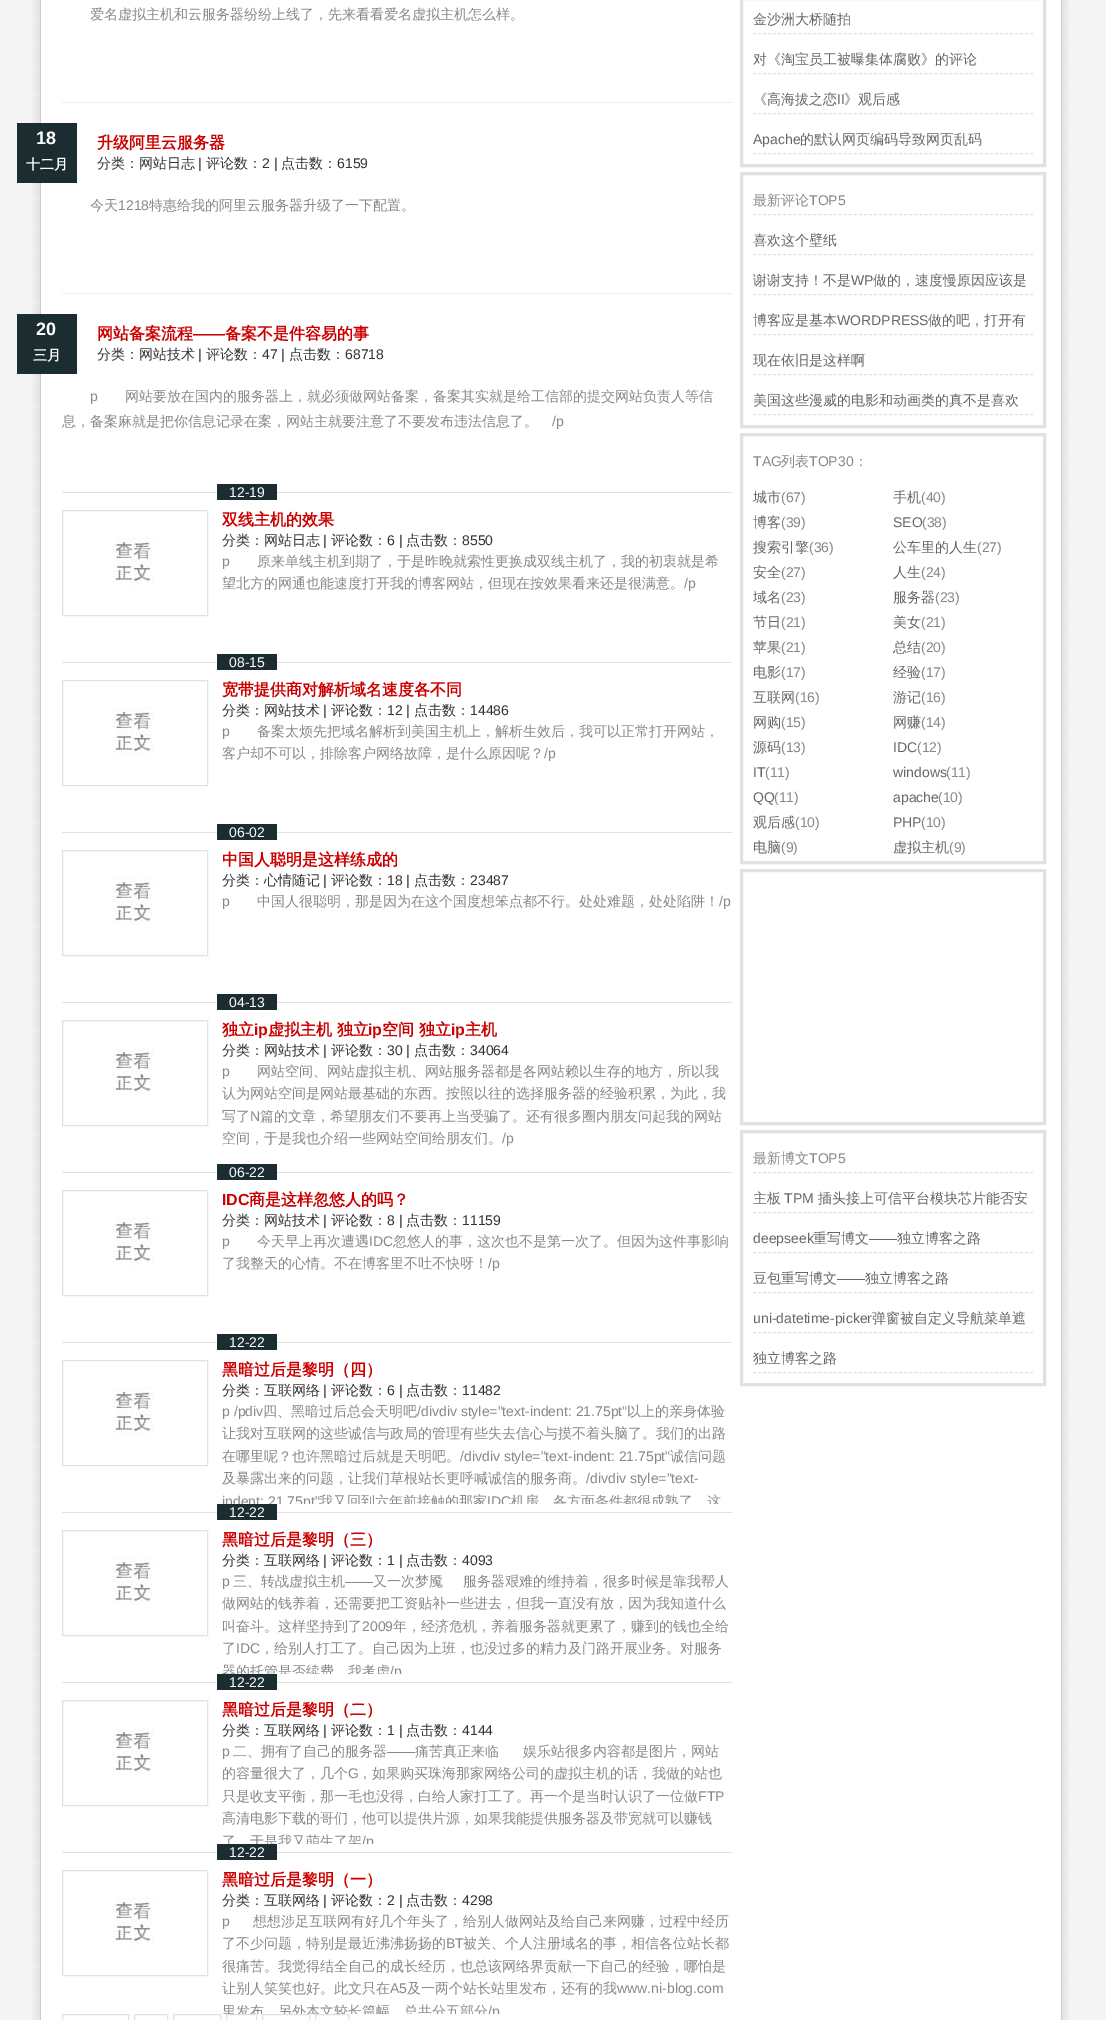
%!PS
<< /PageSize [1106 2020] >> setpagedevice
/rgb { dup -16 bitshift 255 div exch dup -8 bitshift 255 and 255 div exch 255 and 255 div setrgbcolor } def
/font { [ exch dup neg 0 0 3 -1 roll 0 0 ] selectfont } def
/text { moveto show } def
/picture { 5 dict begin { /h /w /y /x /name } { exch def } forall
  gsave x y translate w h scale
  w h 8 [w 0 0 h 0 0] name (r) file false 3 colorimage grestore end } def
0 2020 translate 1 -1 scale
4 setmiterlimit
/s1 { /WenQuanYiZenHei-Medium 14 font 16#888888 rgb } def
/s2 { /LiberationSans-Bold 18 font 16#FFFFFF rgb } def
/s3 { /WenQuanYiZenHei-Bold 14 font 16#FFFFFF rgb } def
/s4 { /WenQuanYiZenHei-Bold 16 font 16#CC0000 rgb } def
/s5 { /WenQuanYiZenHei-Medium 14 font 16#333333 rgb } def
/s6 { /LiberationSans-Regular 14 font 16#333333 rgb } def
/s7 { /LiberationSans-Regular 14 font 16#888888 rgb } def
/s8 { /LiberationSans-Bold 16 font 16#CC0000 rgb } def
/s9 { /LiberationSans-Regular 14 font 16#FFFFFF rgb } def
/s10 { /WenQuanYiZenHei-Medium 14 font 16#666666 rgb } def
/s11 { /LiberationSans-Regular 14 font 16#666666 rgb } def
16#F5F5F5 rgb
0 0 1106 2020 rectfill
(pic1.raw) 32 0 1038 2020 picture
s1
(爱名虚拟主机和云服务器纷纷上线了，先来看看爱名虚拟主机怎么样。) 90 19 text
16#EEEEEE rgb
62 102 670 1 rectfill
16#1B2D31 rgb
17 123 60 60 rectfill
s2
(18) 36 144 text
s3
(十二月) 26 169 text
s4
(升级阿里云服务器) 97 148 text
s5
(分类：网站日志) 97 168 text
s6
(|) 198 168 text
s5
(评论数：) 206 168 text
s6
(2 |) 262 168 text
s5
(点击数：) 281 168 text
s6
(6159) 337 168 text
s1
(今天) 90 210 text
s7
(1218) 118 210 text
s1
(特惠给我的阿里云服务器升级了一下配置。) 149 210 text
16#EEEEEE rgb
62 293 670 1 rectfill
16#1B2D31 rgb
17 314 60 60 rectfill
s2
(20) 36 335 text
s3
(三月) 33 360 text
s4
(网站备案流程) 97 339 text
s8
(――) 193 339 text
s4
(备案不是件容易的事) 225 339 text
s5
(分类：网站技术) 97 359 text
s6
(|) 198 359 text
s5
(评论数：) 206 359 text
s6
(47 |) 262 359 text
s5
(点击数：) 289 359 text
s6
(68718) 345 359 text
s7
(p) 90 401 text
s1
(网站要放在国内的服务器上，就必须做网站备案，备案其实就是给工信部的提交网站负责人等信) 125 401 text
(息，备案麻就是把你信息记录在案，网站主就要注意了不要发布违法信息了。) 62 426 text
s7
(/p) 552 426 text
16#E1E1E1 rgb
62 492 670 1 rectfill
16#1B2D31 rgb
217 484 60 16 rectfill
s9
(12-19) 229 497 text
16#E1E1E1 rgb
62.5 510.5 145 105 rectstroke
(pic2.raw) 113 537 40 48 picture
s4
(双线主机的效果) 222 525 text
s5
(分类：网站日志) 222 545 text
s6
(|) 323 545 text
s5
(评论数：) 331 545 text
s6
(6 |) 387 545 text
s5
(点击数：) 406 545 text
s6
(8550) 462 545 text
s7
(p) 222 566 text
s1
(原来单线主机到期了，于是昨晚就索性更换成双线主机了，我的初衷就是希) 257 566 text
(望北方的网通也能速度打开我的博客网站，但现在按效果看来还是很满意。) 222 588 text
s7
(/p) 684 588 text
16#E1E1E1 rgb
62 662 670 1 rectfill
16#1B2D31 rgb
217 654 60 16 rectfill
s9
(08-15) 229 667 text
16#E1E1E1 rgb
62.5 680.5 145 105 rectstroke
(pic2.raw) 113 707 40 48 picture
s4
(宽带提供商对解析域名速度各不同) 222 695 text
s5
(分类：网站技术) 222 715 text
s6
(|) 323 715 text
s5
(评论数：) 331 715 text
s6
(12 |) 387 715 text
s5
(点击数：) 414 715 text
s6
(14486) 470 715 text
s7
(p) 222 736 text
s1
(备案太烦先把域名解析到美国主机上，解析生效后，我可以正常打开网站，) 257 736 text
(客户却不可以，排除客户网络故障，是什么原因呢？) 222 758 text
s7
(/p) 544 758 text
16#E1E1E1 rgb
62 832 670 1 rectfill
16#1B2D31 rgb
217 824 60 16 rectfill
s9
(06-02) 229 837 text
16#E1E1E1 rgb
62.5 850.5 145 105 rectstroke
(pic2.raw) 113 877 40 48 picture
s4
(中国人聪明是这样练成的) 222 865 text
s5
(分类：心情随记) 222 885 text
s6
(|) 323 885 text
s5
(评论数：) 331 885 text
s6
(18 |) 387 885 text
s5
(点击数：) 414 885 text
s6
(23487) 470 885 text
s7
(p) 222 906 text
s1
(中国人很聪明，那是因为在这个国度想笨点都不行。处处难题，处处陷阱！) 257 906 text
s7
(/p) 719 906 text
16#E1E1E1 rgb
62 1002 670 1 rectfill
16#1B2D31 rgb
217 994 60 16 rectfill
s9
(04-13) 229 1007 text
16#E1E1E1 rgb
62.5 1020.5 145 105 rectstroke
(pic2.raw) 113 1047 40 48 picture
s4
(独立) 222 1035 text
s8
(ip) 254 1035 text
s4
(虚拟主机 独立) 268 1035 text
s8
(ip) 368 1035 text
s4
(空间 独立) 382 1035 text
s8
(ip) 451 1035 text
s4
(主机) 465 1035 text
s5
(分类：网站技术) 222 1055 text
s6
(|) 323 1055 text
s5
(评论数：) 331 1055 text
s6
(30 |) 387 1055 text
s5
(点击数：) 414 1055 text
s6
(34064) 470 1055 text
s7
(p) 222 1076 text
s1
(网站空间、网站虚拟主机、网站服务器都是各网站赖以生存的地方，所以我) 257 1076 text
(认为网站空间是网站最基础的东西。按照以往的选择服务器的经验积累，为此，我) 222 1098 text
(写了) 222 1121 text
s7
(N) 250 1121 text
s1
(篇的文章，希望朋友们不要再上当受骗了。还有很多圈内朋友问起我的网站) 260 1121 text
(空间，于是我也介绍一些网站空间给朋友们。) 222 1143 text
s7
(/p) 502 1143 text
16#E1E1E1 rgb
62 1172 670 1 rectfill
16#1B2D31 rgb
217 1164 60 16 rectfill
s9
(06-22) 229 1177 text
16#E1E1E1 rgb
62.5 1190.5 145 105 rectstroke
(pic2.raw) 113 1217 40 48 picture
s8
(IDC) 222 1205 text
s4
(商是这样忽悠人的吗？) 249 1205 text
s5
(分类：网站技术) 222 1225 text
s6
(|) 323 1225 text
s5
(评论数：) 331 1225 text
s6
(8 |) 387 1225 text
s5
(点击数：) 406 1225 text
s6
(11159) 462 1225 text
s7
(p) 222 1246 text
s1
(今天早上再次遭遇) 257 1246 text
s7
(IDC) 369 1246 text
s1
(忽悠人的事，这次也不是第一次了。但因为这件事影响) 393 1246 text
(了我整天的心情。不在博客里不吐不快呀！) 222 1268 text
s7
(/p) 488 1268 text
16#E1E1E1 rgb
62 1342 670 1 rectfill
16#1B2D31 rgb
217 1334 60 16 rectfill
s9
(12-22) 229 1347 text
16#E1E1E1 rgb
62.5 1360.5 145 105 rectstroke
(pic2.raw) 113 1387 40 48 picture
s4
(黑暗过后是黎明（四）) 222 1375 text
s5
(分类：互联网络) 222 1395 text
s6
(|) 323 1395 text
s5
(评论数：) 331 1395 text
s6
(6 |) 387 1395 text
s5
(点击数：) 406 1395 text
s6
(11482) 462 1395 text
s7
(p /pdiv) 222 1416 text
s1
(四、黑暗过后总会天明吧) 263 1416 text
s7
(/divdiv style="text-indent: 21.75pt") 417 1416 text
s1
(以上的亲身体验) 627 1416 text
(让我对互联网的这些诚信与政局的管理有些失去信心与摸不着头脑了。我们的出路) 222 1438 text
(在哪里呢？也许黑暗过后就是天明吧。) 222 1461 text
s7
(/divdiv style="text-indent: 21.75pt") 460 1461 text
s1
(诚信问题) 670 1461 text
(及暴露出来的问题，让我们草根站长更呼喊诚信的服务商。) 222 1483 text
s7
(/divdiv style="text-) 586 1483 text
gsave
62 1334 670 170 rectclip
(indent: 21.75pt") 222 1506 text
s1
(我又回到六年前接触的那家) 319 1506 text
s7
(IDC) 487 1506 text
s1
(机房，各方面条件都很成熟了。这) 511 1506 text
grestore
16#E1E1E1 rgb
62 1512 670 1 rectfill
16#1B2D31 rgb
217 1504 60 16 rectfill
s9
(12-22) 229 1517 text
16#E1E1E1 rgb
62.5 1530.5 145 105 rectstroke
(pic2.raw) 113 1557 40 48 picture
s4
(黑暗过后是黎明（三）) 222 1545 text
s5
(分类：互联网络) 222 1565 text
s6
(|) 323 1565 text
s5
(评论数：) 331 1565 text
s6
(1 |) 387 1565 text
s5
(点击数：) 406 1565 text
s6
(4093) 462 1565 text
s7
(p) 222 1586 text
s1
(三、转战虚拟主机) 233 1586 text
s7
(——) 345 1586 text
s1
(又一次梦魇) 373 1586 text
(服务器艰难的维持着，很多时候是靠我帮人) 463 1586 text
(做网站的钱养着，还需要把工资贴补一些进去，但我一直没有放，因为我知道什么) 222 1608 text
(叫奋斗。这样坚持到了) 222 1631 text
s7
(2009) 362 1631 text
s1
(年，经济危机，养着服务器就更累了，赚到的钱也全给) 393 1631 text
(了) 222 1653 text
s7
(IDC) 236 1653 text
s1
(，给别人打工了。自己因为上班，也没过多的精力及门路开展业务。对服务) 260 1653 text
gsave
62 1504 670 170 rectclip
(器的托管是否续费，我考虑) 222 1676 text
s7
(/p) 390 1676 text
grestore
16#E1E1E1 rgb
62 1682 670 1 rectfill
16#1B2D31 rgb
217 1674 60 16 rectfill
s9
(12-22) 229 1687 text
16#E1E1E1 rgb
62.5 1700.5 145 105 rectstroke
(pic2.raw) 113 1727 40 48 picture
s4
(黑暗过后是黎明（二）) 222 1715 text
s5
(分类：互联网络) 222 1735 text
s6
(|) 323 1735 text
s5
(评论数：) 331 1735 text
s6
(1 |) 387 1735 text
s5
(点击数：) 406 1735 text
s6
(4144) 462 1735 text
s7
(p) 222 1756 text
s1
(二、拥有了自己的服务器) 233 1756 text
s7
(——) 387 1756 text
s1
(痛苦真正来临) 415 1756 text
(娱乐站很多内容都是图片，网站) 523 1756 text
(的容量很大了，几个) 222 1778 text
s7
(G) 348 1778 text
s1
(，如果购买珠海那家网络公司的虚拟主机的话，我做的站也) 358 1778 text
(只是收支平衡，那一毛也没得，白给人家打工了。再一个是当时认识了一位做) 222 1801 text
s7
(FTP) 698 1801 text
s1
(高清电影下载的哥们，他可以提供片源，如果我能提供服务器及带宽就可以赚钱) 222 1823 text
gsave
62 1674 670 170 rectclip
(了。于是我又萌生了架) 222 1846 text
s7
(/p) 362 1846 text
grestore
16#E1E1E1 rgb
62 1852 670 1 rectfill
16#1B2D31 rgb
217 1844 60 16 rectfill
s9
(12-22) 229 1857 text
16#E1E1E1 rgb
62.5 1870.5 145 105 rectstroke
(pic2.raw) 113 1897 40 48 picture
s4
(黑暗过后是黎明（一）) 222 1885 text
s5
(分类：互联网络) 222 1905 text
s6
(|) 323 1905 text
s5
(评论数：) 331 1905 text
s6
(2 |) 387 1905 text
s5
(点击数：) 406 1905 text
s6
(4298) 462 1905 text
s7
(p) 222 1926 text
s1
(想想涉足互联网有好几个年头了，给别人做网站及给自己来网赚，过程中经历) 253 1926 text
(了不少问题，特别是最近沸沸扬扬的) 222 1948 text
s7
(BT) 446 1948 text
s1
(被关、个人注册域名的事，相信各位站长都) 463 1948 text
(很痛苦。我觉得结全自己的成长经历，也总该网络界贡献一下自己的经验，哪怕是) 222 1971 text
(让别人笑笑也好。此文只在) 222 1993 text
s7
(A5) 390 1993 text
s1
(及一两个站长站里发布，还有的我) 407 1993 text
s7
(www.ni-blog.com) 617 1993 text
gsave
62 1844 670 170 rectclip
s1
(里发布。另外本文较长篇幅，总共分五部分) 222 2016 text
s7
(/p) 488 2016 text
grestore
16#E1E1E1 rgb
62.5 2014.5 66 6 rectstroke
134.5 2014.5 33 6 rectstroke
173.5 2014.5 47 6 rectstroke
226.5 2014.5 30 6 rectstroke
262.5 2014.5 47 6 rectstroke
315.5 2014.5 33 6 rectstroke
3 setlinewidth
741.5 -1.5 303 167 rectstroke
1 setlinewidth
[3 2.04] 0 setdash
753 33.5 moveto 1033 33.5 lineto stroke
s10
(金沙洲大桥随拍) 753 24 text
16#E1E1E1 rgb
753 73.5 moveto 1033 73.5 lineto stroke
s10
(对《淘宝员工被曝集体腐败》的评论) 753 64 text
16#E1E1E1 rgb
753 113.5 moveto 1033 113.5 lineto stroke
s10
(《高海拔之恋) 753 104 text
s11
(II) 837 104 text
s10
(》观后感) 844 104 text
16#E1E1E1 rgb
753 153.5 moveto 1033 153.5 lineto stroke
s11
(Apache) 753 144 text
s10
(的默认网页编码导致网页乱码) 800 144 text
16#E1E1E1 rgb
3 setlinewidth
[] 0 setdash
741.5 173.5 303 253 rectstroke
1 setlinewidth
[3 2.04] 0 setdash
753 214.5 moveto 1033 214.5 lineto stroke
s1
(最新评论) 753 205 text
s7
(TOP5) 809 205 text
16#E1E1E1 rgb
753 254.5 moveto 1033 254.5 lineto stroke
s10
(喜欢这个壁纸) 753 245 text
16#E1E1E1 rgb
753 294.5 moveto 1033 294.5 lineto stroke
s10
(谢谢支持！不是) 753 285 text
s11
(WP) 851 285 text
s10
(做的，速度慢原因应该是) 873 285 text
16#E1E1E1 rgb
753 334.5 moveto 1033 334.5 lineto stroke
s10
(博客应是基本) 753 325 text
s11
(WORDPRESS) 837 325 text
s10
(做的吧，打开有) 928 325 text
16#E1E1E1 rgb
753 374.5 moveto 1033 374.5 lineto stroke
gsave
753 349 280 25 rectclip
s10
(现在依旧是这样啊) 753 365 text
grestore
753 414.5 moveto 1033 414.5 lineto stroke
s10
(美国这些漫威的电影和动画类的真不是喜欢) 753 405 text
16#E1E1E1 rgb
3 setlinewidth
[] 0 setdash
741.5 434.5 303 428 rectstroke
s7
(TAG) 753 466 text
s1
(列表) 781 466 text
s7
(TOP30) 809 466 text
s1
(：) 854 466 text
s10
(城市) 753 502 text
s7
(\(67\)) 781 502 text
s10
(手机) 893 502 text
s7
(\(40\)) 921 502 text
s10
(博客) 753 527 text
s7
(\(39\)) 781 527 text
s11
(SEO) 893 527 text
s7
(\(38\)) 922 527 text
s10
(搜索引擎) 753 552 text
s7
(\(36\)) 809 552 text
s10
(公车里的人生) 893 552 text
s7
(\(27\)) 977 552 text
s10
(安全) 753 577 text
s7
(\(27\)) 781 577 text
s10
(人生) 893 577 text
s7
(\(24\)) 921 577 text
s10
(域名) 753 602 text
s7
(\(23\)) 781 602 text
s10
(服务器) 893 602 text
s7
(\(23\)) 935 602 text
s10
(节日) 753 627 text
s7
(\(21\)) 781 627 text
s10
(美女) 893 627 text
s7
(\(21\)) 921 627 text
s10
(苹果) 753 652 text
s7
(\(21\)) 781 652 text
s10
(总结) 893 652 text
s7
(\(20\)) 921 652 text
s10
(电影) 753 677 text
s7
(\(17\)) 781 677 text
s10
(经验) 893 677 text
s7
(\(17\)) 921 677 text
s10
(互联网) 753 702 text
s7
(\(16\)) 795 702 text
s10
(游记) 893 702 text
s7
(\(16\)) 921 702 text
s10
(网购) 753 727 text
s7
(\(15\)) 781 727 text
s10
(网赚) 893 727 text
s7
(\(14\)) 921 727 text
s10
(源码) 753 752 text
s7
(\(13\)) 781 752 text
s11
(IDC) 893 752 text
s7
(\(12\)) 917 752 text
s11
(IT) 753 777 text
s7
(\(11\)) 765 777 text
s11
(windows) 893 777 text
s7
(\(11\)) 946 777 text
s11
(QQ) 753 802 text
s7
(\(11\)) 774 802 text
s11
(apache) 893 802 text
s7
(\(10\)) 938 802 text
s10
(观后感) 753 827 text
s7
(\(10\)) 795 827 text
s11
(PHP) 893 827 text
s7
(\(10\)) 921 827 text
s10
(电脑) 753 852 text
s7
(\(9\)) 781 852 text
s10
(虚拟主机) 893 852 text
s7
(\(9\)) 949 852 text
16#E1E1E1 rgb
741.5 870.5 303 253 rectstroke
741.5 1131.5 303 253 rectstroke
1 setlinewidth
[3 2.04] 0 setdash
753 1172.5 moveto 1033 1172.5 lineto stroke
s1
(最新博文) 753 1163 text
s7
(TOP5) 809 1163 text
16#E1E1E1 rgb
753 1212.5 moveto 1033 1212.5 lineto stroke
s10
(主板) 753 1203 text
s11
(TPM) 784 1203 text
s10
(插头接上可信平台模块芯片能否安) 818 1203 text
16#E1E1E1 rgb
753 1252.5 moveto 1033 1252.5 lineto stroke
s11
(deepseek) 753 1243 text
s10
(重写博文) 813 1243 text
s11
(——) 869 1243 text
s10
(独立博客之路) 897 1243 text
16#E1E1E1 rgb
753 1292.5 moveto 1033 1292.5 lineto stroke
s10
(豆包重写博文) 753 1283 text
s11
(——) 837 1283 text
s10
(独立博客之路) 865 1283 text
16#E1E1E1 rgb
753 1332.5 moveto 1033 1332.5 lineto stroke
s11
(uni-datetime-picker) 753 1323 text
s10
(弹窗被自定义导航菜单遮) 872 1323 text
16#E1E1E1 rgb
753 1372.5 moveto 1033 1372.5 lineto stroke
s10
(独立博客之路) 753 1363 text
showpage
